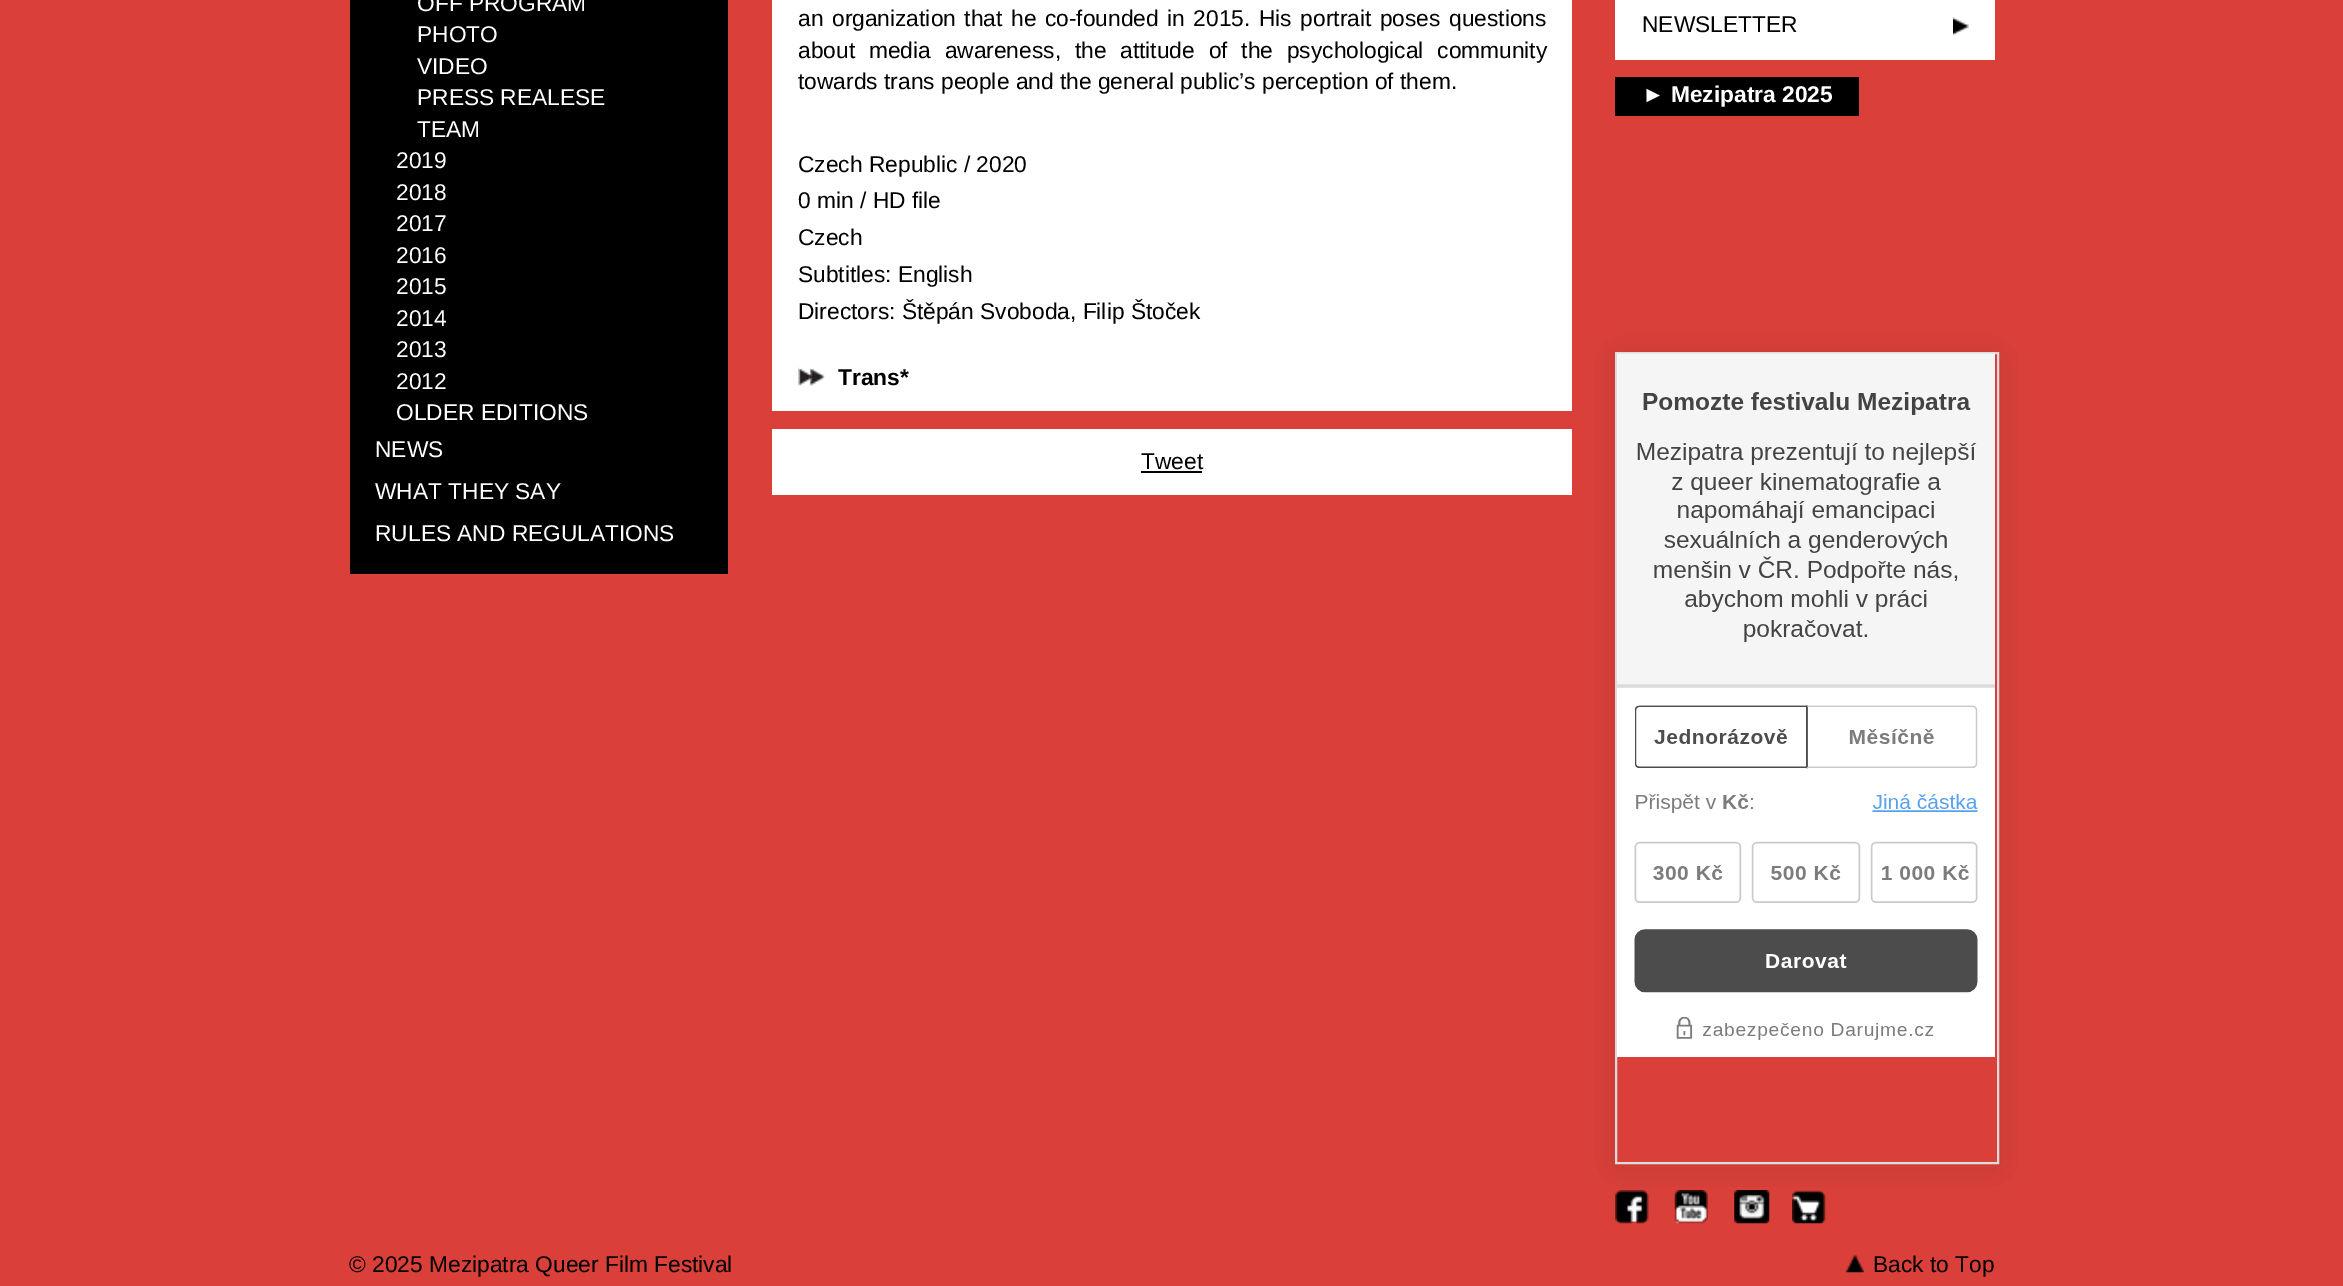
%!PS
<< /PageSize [2343 1286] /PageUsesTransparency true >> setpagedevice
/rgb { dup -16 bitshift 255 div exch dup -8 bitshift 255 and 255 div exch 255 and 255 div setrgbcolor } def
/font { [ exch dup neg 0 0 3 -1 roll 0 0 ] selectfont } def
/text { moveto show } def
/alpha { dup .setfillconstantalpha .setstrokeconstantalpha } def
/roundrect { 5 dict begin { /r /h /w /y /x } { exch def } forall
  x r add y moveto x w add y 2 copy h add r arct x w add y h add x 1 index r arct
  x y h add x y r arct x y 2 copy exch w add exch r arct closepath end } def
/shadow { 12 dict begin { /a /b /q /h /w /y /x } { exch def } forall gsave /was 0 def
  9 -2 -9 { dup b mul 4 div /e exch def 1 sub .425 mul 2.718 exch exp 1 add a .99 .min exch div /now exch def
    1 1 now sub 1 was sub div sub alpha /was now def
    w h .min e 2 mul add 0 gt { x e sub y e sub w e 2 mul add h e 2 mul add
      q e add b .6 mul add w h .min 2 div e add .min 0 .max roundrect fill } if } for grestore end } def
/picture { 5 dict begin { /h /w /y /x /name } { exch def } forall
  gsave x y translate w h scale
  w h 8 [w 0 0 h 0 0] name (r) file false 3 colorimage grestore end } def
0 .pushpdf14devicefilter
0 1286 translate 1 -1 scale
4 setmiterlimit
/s1 { /LiberationSans-Regular 22.75 font 16#FFFFFF rgb } def
/s2 { /LiberationSans-Regular 22.75 font 16#000000 rgb } def
/s3 { /LiberationSans-Bold 22.75 font 16#000000 rgb } def
/s4 { /LiberationSans-Bold 22.75 font 16#FFFFFF rgb } def
16#DA4039 rgb
0 0 2343 1286 rectfill
16#000000 rgb
350 0 378 574 rectfill
s1
(OFF PROGRAM) 417 11 text
(PHOTO) 417 42 text
(VIDEO) 417 74 text
(PRESS REALESE) 417 105 text
(TEAM) 417 137 text
(2019) 396 168 text
(2018) 396 200 text
(2017) 396 231 text
(2016) 396 263 text
(2015) 396 294 text
(2014) 396 326 text
(2013) 396 357 text
(2012) 396 389 text
(OLDER EDITIONS) 396 420 text
(NEWS) 375 457 text
(WHAT THEY SAY) 375 499 text
(RULES AND REGULATIONS) 375 541 text
(pic4.raw) 1615 1190 34 34 picture
(pic5.raw) 1674 1190 34 34 picture
(pic6.raw) 1734 1190 36 34 picture
(pic7.raw) 1792 1190 34 34 picture
gsave
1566 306 moveto 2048 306 lineto 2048 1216 lineto 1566 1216 lineto closepath 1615 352 moveto 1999 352 lineto 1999 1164 lineto 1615 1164 lineto closepath eoclip newpath
16#000000 rgb
1615 355 384 812 0 16 0.09 shadow
grestore
772 0 800 411 rectfill
16#000000 rgb
798 26 moveto 2.25 0 32 (an organization that he co-founded in 2015. His portrait poses questions) widthshow
798 58 moveto 7.5 0 32 (about media awareness, the attitude of the psychological community) widthshow
(towards trans people and the general public’s perception of them.) 798 89 text
(Czech Republic / 2020) 798 172 text
(0 min / HD file) 798 208 text
(Czech) 798 245 text
(Subtitles: English) 798 282 text
(Directors: Štěpán Svoboda, Filip Štoček) 798 319 text
(pic1.raw) 798 367 27 19 picture
s3
(Trans*) 838 385 text
16#FFFFFF rgb
772 429 800 66 rectfill
s2
(Tweet) 1141 469 text
1141 471 61 2 rectfill
16#FFFFFF rgb
1615 0 380 60 rectfill
s2
(NEWSLETTER) 1642 32 text
(pic2.raw) 1953 17 16 18 picture
1615 77 244 39 rectfill
s4
(► Mezipatra 2025) 1642 102 text
16#DCDCDC rgb
2 setlinewidth
1616 353 382 810 rectstroke
(pic3.raw) 1617 353 378 704 picture
s2
(© 2025 Mezipatra Queer Film Festival) 349 1272 text
(pic8.raw) 1846 1254 18 19 picture
(Back to Top) 1873 1272 text
.poppdf14devicefilter showpage
